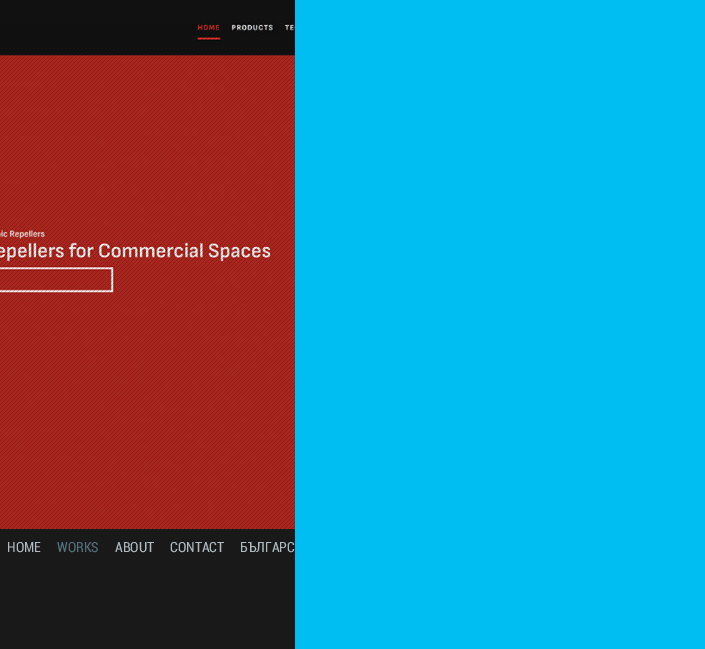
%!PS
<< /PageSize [705 649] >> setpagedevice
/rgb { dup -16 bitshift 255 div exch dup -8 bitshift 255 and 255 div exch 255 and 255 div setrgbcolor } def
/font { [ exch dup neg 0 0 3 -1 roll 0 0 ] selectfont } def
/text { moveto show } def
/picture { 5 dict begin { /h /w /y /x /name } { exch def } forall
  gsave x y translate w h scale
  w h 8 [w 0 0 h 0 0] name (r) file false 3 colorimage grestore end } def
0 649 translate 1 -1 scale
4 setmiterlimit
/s1 { /Roboto-Regular 14 font 16#AFBBC0 rgb } def
/s2 { /Roboto-Regular 14 font 16#53707B rgb } def
16#FFFFFF rgb
0 0 705 649 rectfill
(pic1.raw) 0 0 295 529 picture
(pic2.raw) 0 24 295 505 picture
16#00BDF2 rgb
295 0 410 649 rectfill
16#191919 rgb
0 529 295 120 rectfill
s1
(HOME) 7 552 text
s2
(WORKS) 57 552 text
s1
(ABOUT) 115 552 text
(CONTACT) 170 552 text
(БЪЛГАРС) 240 552 text
showpage
